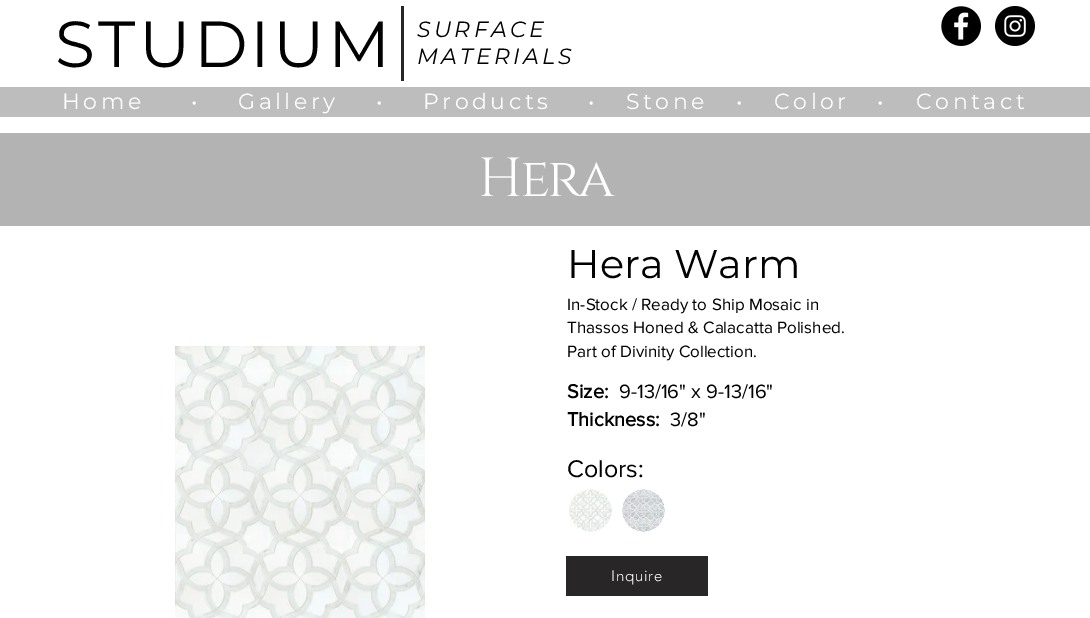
%!PS
<< /PageSize [1090 618] >> setpagedevice
/rgb { dup -16 bitshift 255 div exch dup -8 bitshift 255 and 255 div exch 255 and 255 div setrgbcolor } def
/font { [ exch dup neg 0 0 3 -1 roll 0 0 ] selectfont } def
/text { moveto show } def
/picture { 5 dict begin { /h /w /y /x /name } { exch def } forall
  gsave x y translate w h scale
  w h 8 [w 0 0 h 0 0] name (r) file false 3 colorimage grestore end } def
0 618 translate 1 -1 scale
4 setmiterlimit
/s1 { /Montserrat-Regular 40 font 16#000000 rgb } def
/s2 { /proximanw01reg-Regular 17 font 16#000000 rgb } def
/s3 { /proximanw01reg-Bold 20 font 16#000000 rgb } def
/s4 { /proximanw01reg-Regular 20 font 16#000000 rgb } def
/s5 { /proximanw01reg-Regular 25 font 16#000000 rgb } def
16#FFFFFF rgb
0 0 1090 618 rectfill
/Montserrat-Regular 65 font
16#000000 rgb
55 67 moveto 3.25 0 (STUDIUM) ashow
16#282626 rgb
401 6 3 75 rectfill
/Montserrat-Italic 22 font
16#000000 rgb
417 37 moveto 3.25 0 (SURFACE) ashow
417 64 moveto 3.25 0 (MATERIALS) ashow
(pic1.raw) 941 6 40 40 picture
(pic2.raw) 995 6 40 40 picture
16#BDBDBD rgb
0 87 1090 30 rectfill
/Montserrat-Regular 22 font
16#FFFFFF rgb
62 109 moveto 3.5 0 (Home) ashow
191 109 moveto 3.5 0 (•) ashow
238 109 moveto 3.5 0 (Gallery) ashow
376 109 moveto 3.5 0 (•) ashow
423 109 moveto 3.5 0 (Products) ashow
588 109 moveto 3.5 0 (•) ashow
626 109 moveto 3.5 0 (Stone) ashow
736 109 moveto 3.5 0 (•) ashow
774 109 moveto 3.5 0 (Color   •) ashow
916 109 moveto 3.5 0 (Contact) ashow
16#B3B3B3 rgb
0 133 1090 93 rectfill
/Cinzel-Regular 55 font
16#FFFFFF rgb
478 196 moveto -3 0 (Hera) ashow
s1
(Hera Warm) 567 278 text
s2
(In-Stock / Ready to Ship Mosaic in) 567 310 text
(Thassos Honed & Calacatta Polished.) 567 333 text
(Part of Divinity Collection.) 567 357 text
(pic3.raw) 175 346 250 272 picture
s3
(Size:) 567 398 text
s4
(9-13/16" x 9-13/16") 619 398 text
s3
(Thickness:) 567 426 text
s4
(3/8") 670 426 text
s5
(Colors:) 567 477 text
(pic4.raw) 569 489 43 43 picture
(pic5.raw) 622 489 43 43 picture
16#282626 rgb
566 556 142 40 rectfill
/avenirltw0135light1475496-Light 15 font
16#FFFFFF rgb
611 581 moveto 0.75 0 (Inquire) ashow
showpage
